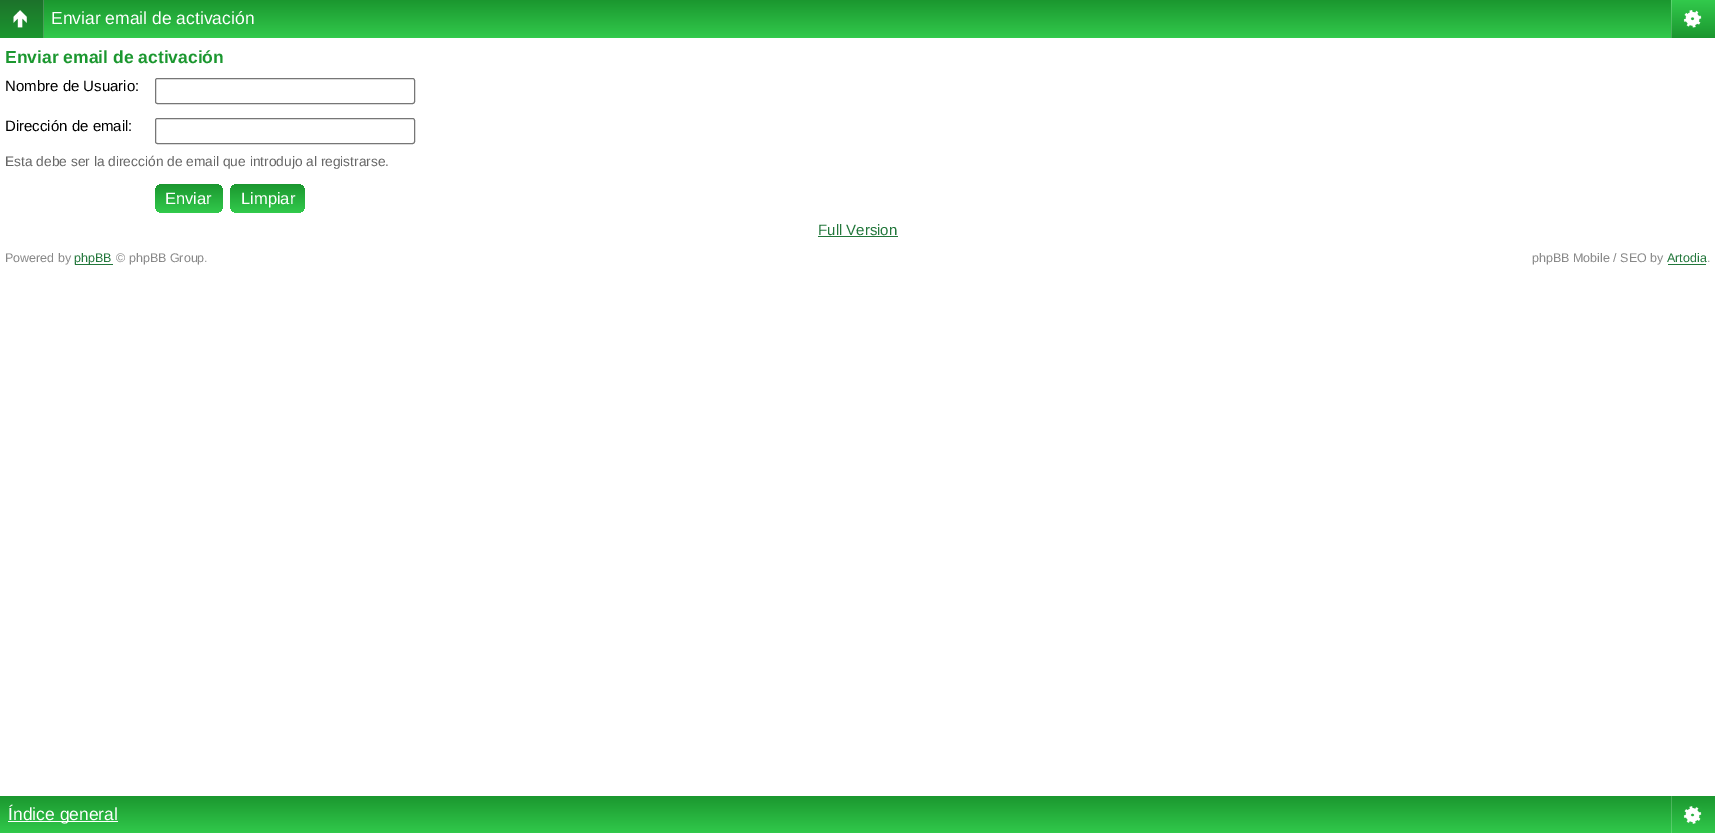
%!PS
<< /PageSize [1715 833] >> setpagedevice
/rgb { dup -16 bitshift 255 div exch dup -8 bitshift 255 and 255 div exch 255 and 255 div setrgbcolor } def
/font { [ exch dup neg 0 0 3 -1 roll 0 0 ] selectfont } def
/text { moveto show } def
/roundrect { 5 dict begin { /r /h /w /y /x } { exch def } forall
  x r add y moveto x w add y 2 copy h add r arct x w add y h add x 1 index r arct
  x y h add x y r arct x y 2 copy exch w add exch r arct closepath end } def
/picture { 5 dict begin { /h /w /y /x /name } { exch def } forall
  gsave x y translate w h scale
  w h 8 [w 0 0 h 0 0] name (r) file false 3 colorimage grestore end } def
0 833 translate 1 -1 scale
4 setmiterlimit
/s1 { /LiberationSans-Regular 17.5 font 16#FFFFFF rgb } def
/s2 { /LiberationSans-Bold 17.5 font 16#1B972F rgb } def
/s3 { /LiberationSans-Regular 15 font 16#000000 rgb } def
/s4 { /LiberationSans-Regular 13.75 font 16#666666 rgb } def
/s5 { /LiberationSans-Regular 16.5 font 16#FFFFFF rgb } def
/s6 { /LiberationSans-Regular 15 font 16#22773B rgb } def
/s7 { /LiberationSans-Regular 12.5 font 16#888888 rgb } def
/s8 { /LiberationSans-Regular 12.5 font 16#22773B rgb } def
16#FFFFFF rgb
0 0 1715 833 rectfill
gsave 44 0 moveto 1671 0 lineto 1671 38 lineto 44 38 lineto closepath clip newpath
<< /ShadingType 2 /ColorSpace /DeviceRGB /Coords [858 0 858 38] /Extend [true true] /Function << /FunctionType 2 /Domain [0 1] /C0 [0.106 0.592 0.184] /C1 [0.196 0.792 0.298] /N 1 >> >> shfill grestore
gsave 0 0 moveto 43 0 lineto 43 38 lineto 0 38 lineto closepath clip newpath
<< /ShadingType 2 /ColorSpace /DeviceRGB /Coords [22 0 22 38] /Extend [true true] /Function << /FunctionType 2 /Domain [0 1] /C0 [0.114 0.447 0.169] /C1 [0.106 0.592 0.184] /N 1 >> >> shfill grestore
gsave 43 0 moveto 44 0 lineto 44 38 lineto 43 38 lineto closepath clip newpath
<< /ShadingType 2 /ColorSpace /DeviceRGB /Coords [22 0 22 38] /Extend [true true] /Function << /FunctionType 2 /Domain [0 1] /C0 [0.29 0.557 0.333] /C1 [0.286 0.675 0.349] /N 1 >> >> shfill grestore
(pic1.raw) 13 10 14 18 picture
s1
(Enviar email de activación) 51 24 text
gsave 1672 0 moveto 1715 0 lineto 1715 38 lineto 1672 38 lineto closepath clip newpath
<< /ShadingType 2 /ColorSpace /DeviceRGB /Coords [1693 0 1693 38] /Extend [true true] /Function << /FunctionType 2 /Domain [0 1] /C0 [0.196 0.792 0.298] /C1 [0.106 0.588 0.184] /N 1 >> >> shfill grestore
gsave 1671 0 moveto 1672 0 lineto 1672 38 lineto 1671 38 lineto closepath clip newpath
<< /ShadingType 2 /ColorSpace /DeviceRGB /Coords [1693 0 1693 38] /Extend [true true] /Function << /FunctionType 2 /Domain [0 1] /C0 [0.357 0.835 0.439] /C1 [0.286 0.671 0.349] /N 1 >> >> shfill grestore
(pic2.raw) 1683 10 19 18 picture
s2
(Enviar email de activación) 5 63 text
s3
(Nombre de Usuario:) 5 91 text
16#767676 rgb
155.5 78.5 259 25 2 roundrect stroke
s3
(Dirección de email:) 5 131 text
16#767676 rgb
155.5 118.5 259 25 2 roundrect stroke
s4
(Esta debe ser la dirección de email que introdujo al registrarse.) 5 166 text
gsave 155 184 68 29 8 roundrect clip newpath
<< /ShadingType 2 /ColorSpace /DeviceRGB /Coords [189 184 189 213] /Extend [true true] /Function << /FunctionType 2 /Domain [0 1] /C0 [0.106 0.592 0.184] /C1 [0.196 0.792 0.298] /N 1 >> >> shfill grestore
s5
(Enviar) 165 204 text
gsave 230 184 75 29 8 roundrect clip newpath
<< /ShadingType 2 /ColorSpace /DeviceRGB /Coords [268 184 268 213] /Extend [true true] /Function << /FunctionType 2 /Domain [0 1] /C0 [0.106 0.592 0.184] /C1 [0.196 0.792 0.298] /N 1 >> >> shfill grestore
(Limpiar) 241 204 text
s6
(Full Version) 818 235 text
818 236 80 1 rectfill
s7
(Powered by) 5 262 text
16#22773B rgb
75 264 38 1 rectfill
(phpBB) 74 262 text
s7
(© phpBB Group.) 116 262 text
(phpBB Mobile / SEO by) 1532 262 text
s8
(Artodia) 1667 262 text
1668 264 38 1 rectfill
s7
(.) 1707 262 text
gsave 0 796 moveto 1715 796 lineto 1715 833 lineto 0 833 lineto closepath clip newpath
<< /ShadingType 2 /ColorSpace /DeviceRGB /Coords [858 796 858 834] /Extend [true true] /Function << /FunctionType 2 /Domain [0 1] /C0 [0.106 0.592 0.184] /C1 [0.196 0.792 0.298] /N 1 >> >> shfill grestore
gsave 1671 796 moveto 1672 796 lineto 1672 833 lineto 1671 833 lineto closepath clip newpath
<< /ShadingType 2 /ColorSpace /DeviceRGB /Coords [858 796 858 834] /Extend [true true] /Function << /FunctionType 2 /Domain [0 1] /C0 [0.286 0.675 0.349] /C1 [0.357 0.835 0.439] /N 1 >> >> shfill grestore
16#FFFFFF rgb
8 821 110 1 rectfill
s1
(Índice general) 8 820 text
(pic3.raw) 1683 806 19 18 picture
showpage
